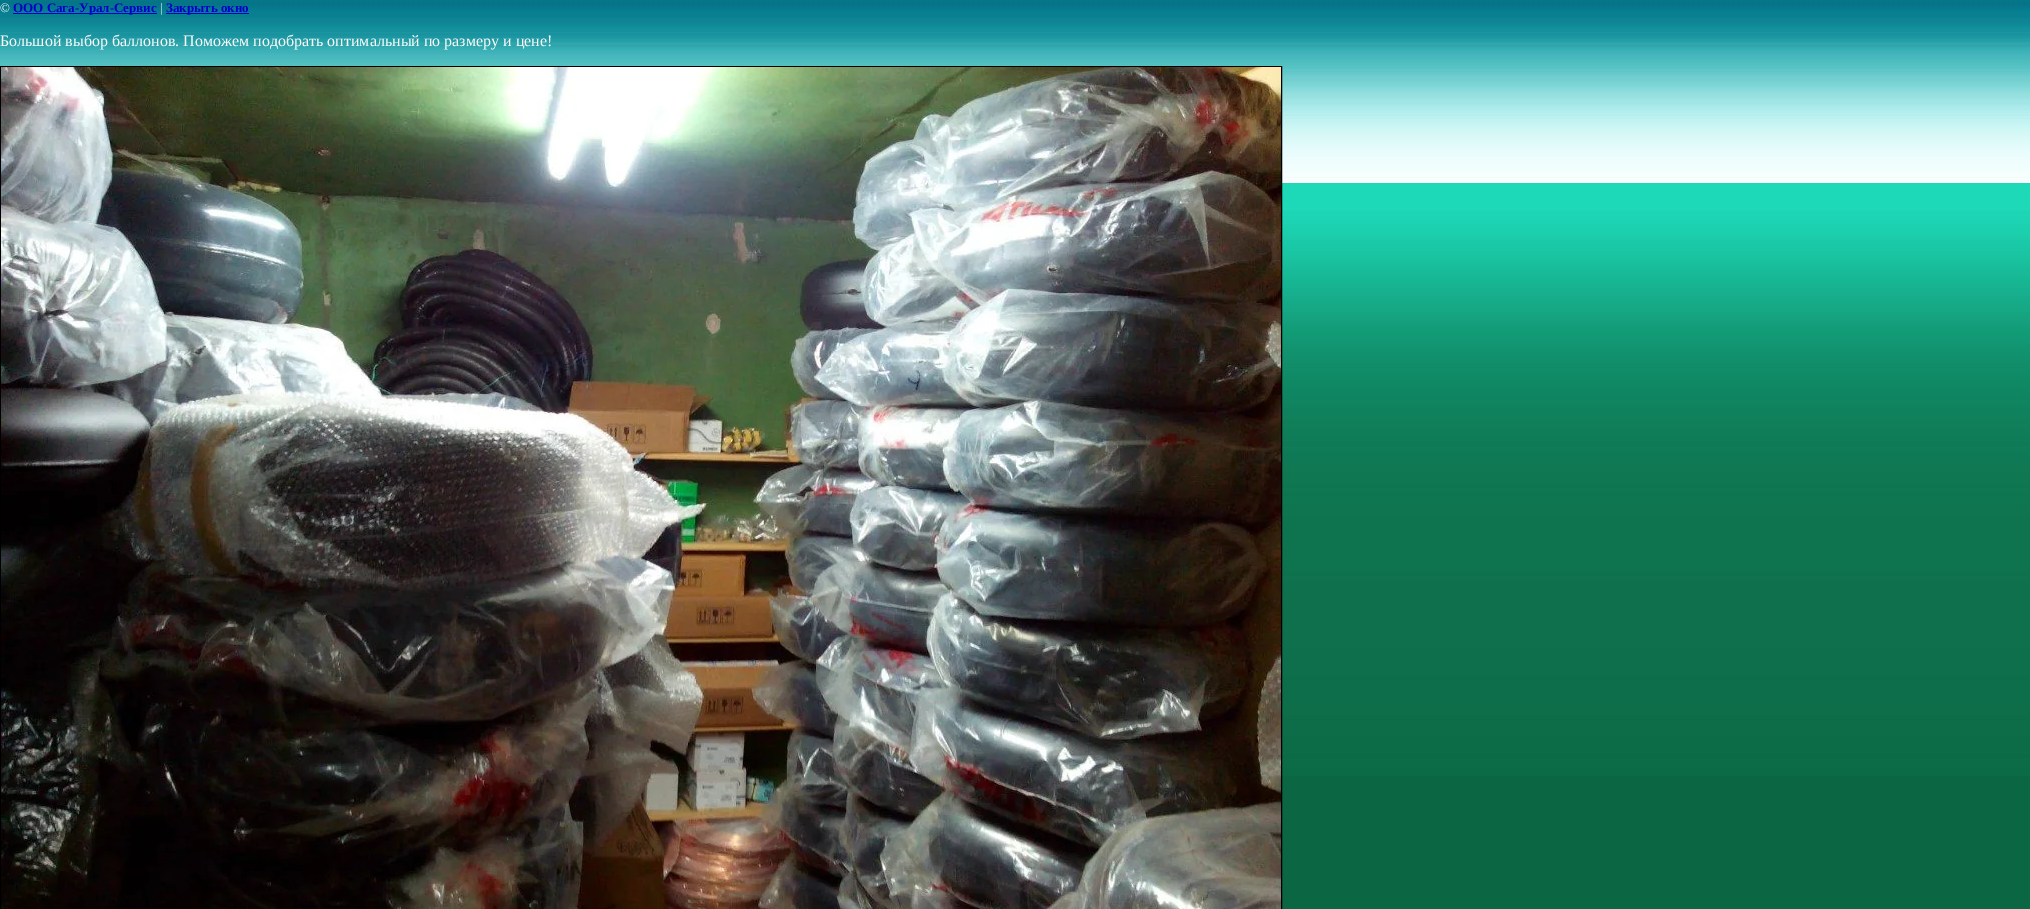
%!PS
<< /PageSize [2030 909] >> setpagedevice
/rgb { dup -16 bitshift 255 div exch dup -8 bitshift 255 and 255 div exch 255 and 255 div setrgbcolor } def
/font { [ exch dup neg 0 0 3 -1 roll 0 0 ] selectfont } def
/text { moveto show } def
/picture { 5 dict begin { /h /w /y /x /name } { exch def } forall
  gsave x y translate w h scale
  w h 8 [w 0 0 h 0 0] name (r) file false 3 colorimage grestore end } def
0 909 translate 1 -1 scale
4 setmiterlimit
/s1 { /LiberationSerif-Regular 13 font 16#FFFFFF rgb } def
/s2 { /LiberationSerif-Bold 13 font 16#0000CC rgb } def
/s3 { /LiberationSerif-Regular 16 font 16#FFFFFF rgb } def
16#0B6643 rgb
0 0 2030 909 rectfill
(pic1.raw) 0 0 2030 776 picture
s1
(©) 0 12 text
16#0000CC rgb
13 13 144 1 rectfill
s2
(ООО Сага-Урал-Сервис) 13 12 text
s1
(|) 160 12 text
16#0000CC rgb
166 13 83 1 rectfill
s2
(Закрыть окно) 166 12 text
s3
(Большой выбор баллонов. Поможем подобрать оптимальный по размеру и цене!) 0 46 text
16#000000 rgb
0.5 66.5 1281 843 rectstroke
(pic2.raw) 1 67 1280 842 picture
showpage
